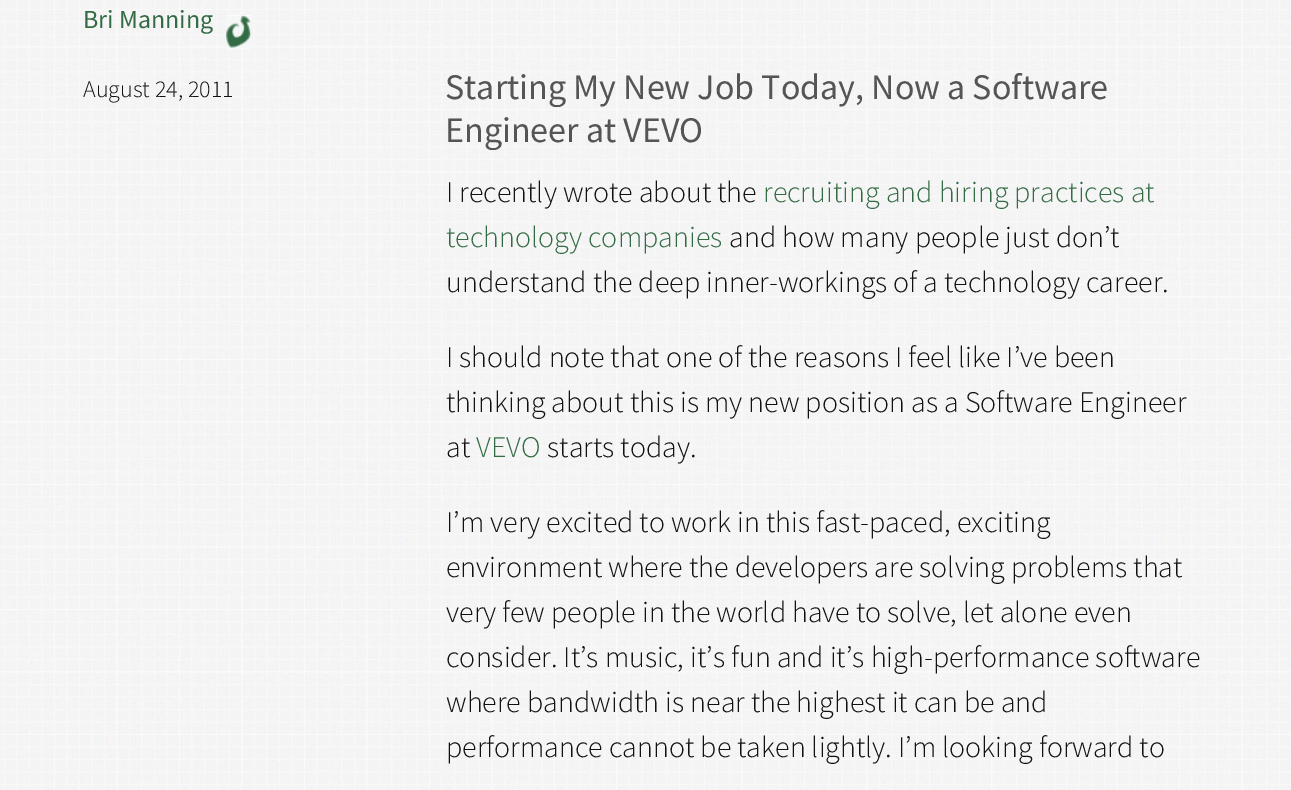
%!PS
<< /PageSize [1291 790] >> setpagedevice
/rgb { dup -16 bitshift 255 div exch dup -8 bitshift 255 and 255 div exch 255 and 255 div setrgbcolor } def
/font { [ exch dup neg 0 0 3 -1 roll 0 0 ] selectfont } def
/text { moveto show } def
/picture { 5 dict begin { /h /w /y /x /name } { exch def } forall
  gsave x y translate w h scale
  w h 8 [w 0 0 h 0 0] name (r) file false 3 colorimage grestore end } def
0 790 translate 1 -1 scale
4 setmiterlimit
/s1 { /SourceSansPro-Regular 26 font 16#336B45 rgb } def
/s2 { /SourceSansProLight-Light 24 font 16#111111 rgb } def
/s3 { /SourceSansPro-Regular 36 font 16#555555 rgb } def
/s4 { /SourceSansProLight-Light 30 font 16#111111 rgb } def
/s5 { /SourceSansProLight-Light 30 font 16#336B45 rgb } def
16#FFFFFF rgb
0 0 1291 790 rectfill
(pic1.raw) 0 0 1291 790 picture
(pic2.raw) 226 15 26 34 picture
s1
(Bri Manning) 83 28 text
s2
(August 24, 2011) 83 97 text
s3
(Starting My New Job Today, Now a Software) 445 99 text
(Engineer at VEVO) 445 142 text
s4
(I recently wrote about the) 446 202 text
s5
(recruiting and hiring practices at) 763 202 text
(technology companies) 446 247 text
s4
(and how many people just don’t) 729 247 text
(understand the deep inner-workings of a technology career.) 446 292 text
(I should note that one of the reasons I feel like I’ve been) 446 367 text
(thinking about this is my new position as a Software Engineer) 446 412 text
(at) 446 457 text
s5
(VEVO) 476 457 text
s4
(starts today.) 547 457 text
(I’m very excited to work in this fast-paced, exciting) 446 532 text
(environment where the developers are solving problems that) 446 577 text
(very few people in the world have to solve, let alone even) 446 622 text
(consider. It’s music, it’s fun and it’s high-performance software) 446 667 text
(where bandwidth is near the highest it can be and) 446 712 text
(performance cannot be taken lightly. I’m looking forward to) 446 757 text
showpage
